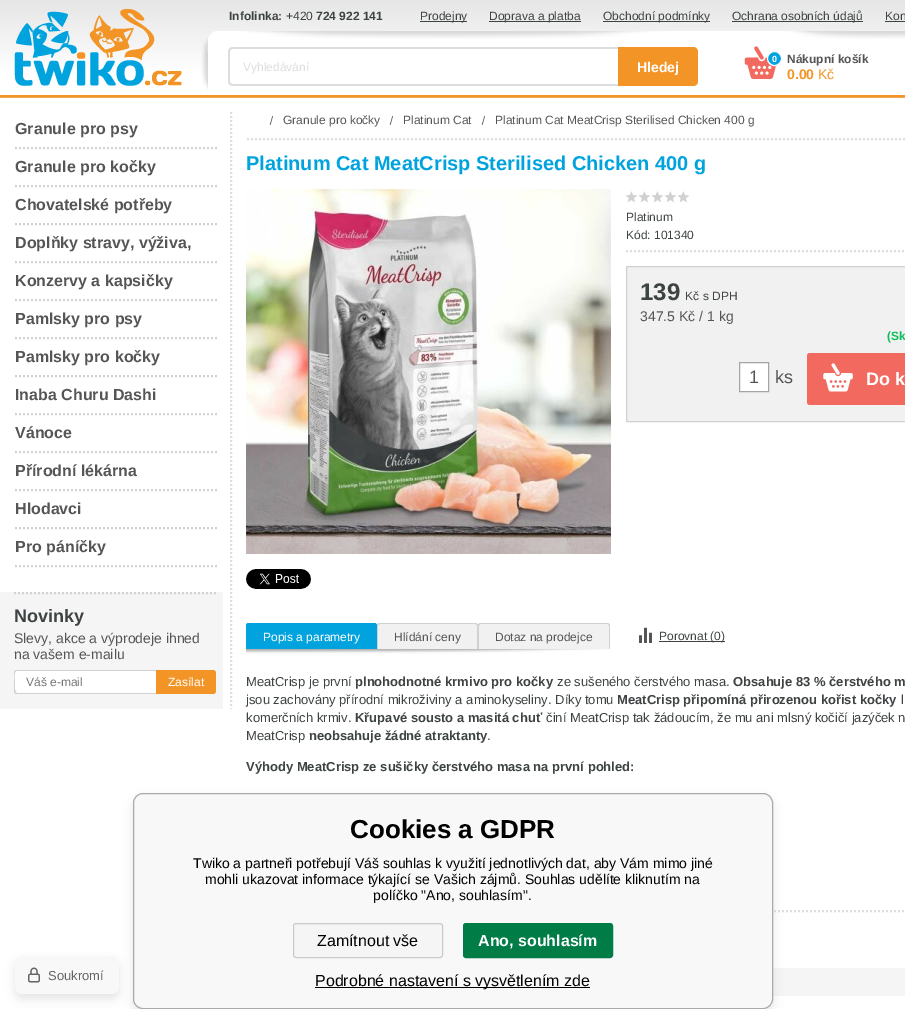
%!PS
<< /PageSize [905 1009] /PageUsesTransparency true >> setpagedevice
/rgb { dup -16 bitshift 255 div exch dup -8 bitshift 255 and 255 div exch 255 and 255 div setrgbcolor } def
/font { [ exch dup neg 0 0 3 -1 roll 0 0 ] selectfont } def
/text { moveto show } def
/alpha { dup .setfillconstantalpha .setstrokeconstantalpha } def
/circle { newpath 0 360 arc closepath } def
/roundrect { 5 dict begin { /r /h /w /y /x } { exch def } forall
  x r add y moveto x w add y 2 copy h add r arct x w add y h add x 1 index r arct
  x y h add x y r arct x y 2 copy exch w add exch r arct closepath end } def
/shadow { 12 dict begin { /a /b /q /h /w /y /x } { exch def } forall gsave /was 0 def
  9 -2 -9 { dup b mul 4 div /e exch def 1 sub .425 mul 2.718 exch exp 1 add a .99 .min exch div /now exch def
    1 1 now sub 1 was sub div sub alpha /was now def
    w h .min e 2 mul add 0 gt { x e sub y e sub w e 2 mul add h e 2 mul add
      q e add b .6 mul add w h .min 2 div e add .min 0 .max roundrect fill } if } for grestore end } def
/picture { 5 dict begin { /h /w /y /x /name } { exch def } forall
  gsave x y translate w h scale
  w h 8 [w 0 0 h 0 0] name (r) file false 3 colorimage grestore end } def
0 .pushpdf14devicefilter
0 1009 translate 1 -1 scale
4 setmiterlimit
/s1 { /LiberationSans-Bold 12 font 16#3D4242 rgb } def
/s2 { /LiberationSans-Regular 12 font 16#3D4242 rgb } def
/s3 { /LiberationSans-Regular 12 font 16#DDDDDD rgb } def
/s4 { /LiberationSans-Bold 14 font 16#FFFFFF rgb } def
/s5 { /LiberationSans-Bold 9 font 16#FFFFFF rgb } def
/s6 { /LiberationSans-Bold 12 font 16#555555 rgb } def
/s7 { /LiberationSans-Bold 14 font 16#F29526 rgb } def
/s8 { /LiberationSans-Regular 14 font 16#F29526 rgb } def
/s9 { /LiberationSans-Bold 16 font 16#555555 rgb } def
/s10 { /LiberationSans-Bold 18 font 16#3D4242 rgb } def
/s11 { /LiberationSans-Regular 14 font 16#555555 rgb } def
/s12 { /LiberationSans-Regular 12 font 16#757575 rgb } def
/s13 { /LiberationSans-Regular 12 font 16#FFFFFF rgb } def
/s14 { /LiberationSans-Regular 12 font 16#555555 rgb } def
/s15 { /LiberationSans-Bold 20 font 16#00A3DE rgb } def
/s16 { /LiberationSans-Bold 24 font 16#3D4242 rgb } def
/s17 { /LiberationSans-Bold 12 font 16#0DBE5C rgb } def
/s18 { /LiberationSans-Regular 18 font 16#555555 rgb } def
/s19 { /LiberationSans-Bold 18 font 16#FFFFFF rgb } def
/s20 { /LiberationSans-Regular 13 font 16#3D4242 rgb } def
/s21 { /LiberationSans-Bold 13 font 16#3D4242 rgb } def
/s22 { /LiberationSans-Regular 13 font 16#646464 rgb } def
/s23 { /LiberationSans-Bold 26 font 16#000000 rgb } def
/s24 { /LiberationSans-Regular 14 font 16#000000 rgb } def
/s25 { /LiberationSans-Regular 16 font 16#000000 rgb } def
/s26 { /LiberationSans-Bold 16 font 16#FFFFFF rgb } def
16#FFFFFF rgb
0 0 905 1009 rectfill
(pic1.raw) 0 0 905 98 picture
(pic2.raw) 14 9 168 77 picture
s1
(Infolinka:) 229 20 text
s2
(+420) 286 20 text
s1
(724 922 141) 316 20 text
420 21 47 1 rectfill
s2
(Prodejny) 420 20 text
489 21 92 1 rectfill
(Doprava a platba) 489 20 text
603 21 107 1 rectfill
(Obchodní podmínky) 603 20 text
732 21 131 1 rectfill
(Ochrana osobních údajů) 732 20 text
(Kon) 885 20 text
885 21 20 1 rectfill
16#FFFFFF rgb
218 31 moveto 905 31 lineto 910.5 31 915 35.5 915 41 curveto 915 95 lineto 208 95 lineto 208 41 lineto 208 35.5 212.5 31 218 31 curveto closepath fill
(pic3.raw) 245 31 660 8 picture
(pic4.raw) 201 37 7 53 picture
16#DDDDDD rgb
233 47 moveto 618 47 lineto 618 86 lineto 233 86 lineto 230 86 228 84 228 81 curveto 228 52 lineto 228 49 230 47 233 47 curveto closepath 233 49 moveto 618 49 lineto 618 84 lineto 233 84 lineto 231 84 230 83 230 81 curveto 230 52 lineto 230 50 231 49 233 49 curveto closepath eofill
(Vyhledávání) 243 71 text
16#F29526 rgb
618 47 moveto 693 47 lineto 696 47 698 49 698 52 curveto 698 81 lineto 698 84 696 86 693 86 curveto 618 86 lineto closepath fill
s4
(Hledej) 637 72 text
(pic5.raw) 744 46 35 33 picture
16#00A3DE rgb
774.5 58.5 7 circle gsave fill grestore
16#FFFFFF rgb
stroke
s5
(0) 772 62 text
s6
(Nákupní košík) 787 63 text
s7
(0.00) 787 79 text
s8
(Kč) 818 79 text
16#DDDDDD rgb
2 setlinewidth
[2 2] 0 setdash
231 112 moveto 231 709 lineto stroke
16#D1D1D1 rgb
15 148 moveto 218 148 lineto stroke
s9
(Granule pro psy) 15 134 text
16#D1D1D1 rgb
15 186 moveto 218 186 lineto stroke
s9
(Granule pro kočky) 15 172 text
16#D1D1D1 rgb
15 224 moveto 218 224 lineto stroke
s9
(Chovatelské potřeby) 15 210 text
16#D1D1D1 rgb
15 262 moveto 218 262 lineto stroke
s9
(Doplňky stravy, výživa,) 15 248 text
16#D1D1D1 rgb
15 300 moveto 218 300 lineto stroke
s9
(Konzervy a kapsičky) 15 286 text
16#D1D1D1 rgb
15 338 moveto 218 338 lineto stroke
s9
(Pamlsky pro psy) 15 324 text
16#D1D1D1 rgb
15 376 moveto 218 376 lineto stroke
s9
(Pamlsky pro kočky) 15 362 text
16#D1D1D1 rgb
15 414 moveto 218 414 lineto stroke
s9
(Inaba Churu Dashi) 15 400 text
16#D1D1D1 rgb
15 452 moveto 218 452 lineto stroke
s9
(Vánoce) 15 438 text
16#D1D1D1 rgb
15 490 moveto 218 490 lineto stroke
s9
(Přírodní lékárna) 15 476 text
16#D1D1D1 rgb
15 528 moveto 218 528 lineto stroke
s9
(Hlodavci) 15 514 text
16#D1D1D1 rgb
15 566 moveto 218 566 lineto stroke
s9
(Pro páníčky) 15 552 text
16#F5F5F5 rgb
0 592 223 117 rectfill
16#D1D1D1 rgb
14 593 moveto 217 593 lineto stroke
s10
(Novinky) 14 622 text
s11
(Slevy, akce a výprodeje ihned) 14 643 text
(na vašem e-mailu) 14 659 text
16#FFFFFF rgb
17 670 moveto 156 670 lineto 156 694 lineto 17 694 lineto 15.5 694 14 692.5 14 691 curveto 14 673 lineto 14 671.5 15.5 670 17 670 curveto closepath fill
16#D1D1D1 rgb
17 670 moveto 156 670 lineto 156 694 lineto 17 694 lineto 15 694 14 693 14 691 curveto 14 673 lineto 14 671 15 670 17 670 curveto closepath 17 671 moveto 156 671 lineto 156 693 lineto 17 693 lineto 14 692 15 684 15 682 curveto 15 680 13 671 17 671 curveto closepath eofill
s12
(Váš e-mail) 26 686 text
16#F29526 rgb
156 670 moveto 213 670 lineto 214.5 670 216 671.5 216 673 curveto 216 691 lineto 216 692.5 214.5 694 213 694 curveto 156 694 lineto closepath fill
s13
(Zasílat) 168 686 text
16#DDDDDD rgb
247 139 moveto 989 139 lineto stroke
(pic6.raw) 269 116 4 9 picture
s14
(Granule pro kočky) 283 124 text
(pic6.raw) 389 116 4 9 picture
(Platinum Cat) 403 124 text
(pic6.raw) 481 116 4 9 picture
(Platinum Cat MeatCrisp Sterilised Chicken 400 g) 495 124 text
s15
(Platinum Cat MeatCrisp Sterilised Chicken 400 g) 246 170 text
(pic7.raw) 246 189 365 365 picture
(pic8.raw) 246 569 65 20 picture
(pic9.raw) 626 191 63 12 picture
16#DDDDDD rgb
626 251 moveto 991 251 lineto stroke
s2
(Platinum) 626 221 text
(Kód: 101340) 626 239 text
16#F1F1F1 rgb
626.5 266.5 moveto 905.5 266.5 lineto 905.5 421.5 lineto 626.5 421.5 lineto closepath gsave fill grestore
16#D1D1D1 rgb
1 setlinewidth
[] 0 setdash
stroke
s16
(139) 640 300 text
s2
(Kč) 685 300 text
(s DPH) 703 300 text
s11
(347.5 Kč / 1 kg) 640 321 text
s17
(\(Sk) 887 340 text
16#FFFFFF rgb
739.5 362.5 moveto 768.5 362.5 lineto 768.5 391.5 lineto 739.5 391.5 lineto closepath gsave fill grestore
16#A5A5A5 rgb
stroke
s18
(1) 749 383 text
(ks) 775 383 text
16#F2695F rgb
807 353 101 52 3 roundrect fill
(pic10.raw) 823 363 30 29 picture
s19
(Do k) 866 385 text
(pic11.raw) 246 649 362 5 picture
16#00A3DE rgb
249 623 moveto 374 623 lineto 375.5 623 377 624.5 377 626 curveto 377 649 lineto 246 649 lineto 246 626 lineto 246 624.5 247.5 623 249 623 curveto closepath fill
249 623 moveto 374 623 lineto 376 623 377 624 377 626 curveto 377 649 lineto 246 649 lineto 246 626 lineto 246 624 247 623 249 623 curveto closepath 249 624 moveto 374 624 lineto 375 624 376 625 376 626 curveto 376 649 lineto 247 649 lineto 247 626 lineto 247 625 248 624 249 624 curveto closepath eofill
s13
(Popis a parametry) 263 641 text
16#F1F1F1 rgb
380 623 moveto 475 623 lineto 476.5 623 478 624.5 478 626 curveto 478 649 lineto 377 649 lineto 377 626 lineto 377 624.5 378.5 623 380 623 curveto closepath fill
16#D1D1D1 rgb
380 623 moveto 475 623 lineto 477 623 478 624 478 626 curveto 478 649 lineto 377 649 lineto 377 626 lineto 377 624 378 623 380 623 curveto closepath 380 624 moveto 475 624 lineto 476 624 477 625 477 626 curveto 477 649 lineto 378 649 lineto 378 626 lineto 378 625 379 624 380 624 curveto closepath eofill
s14
(Hlídání ceny) 394 641 text
16#F1F1F1 rgb
481 623 moveto 607 623 lineto 608.5 623 610 624.5 610 626 curveto 610 649 lineto 478 649 lineto 478 626 lineto 478 624.5 479.5 623 481 623 curveto closepath fill
16#D1D1D1 rgb
481 623 moveto 607 623 lineto 609 623 610 624 610 626 curveto 610 649 lineto 478 649 lineto 478 626 lineto 478 624 479 623 481 623 curveto closepath 481 624 moveto 607 624 lineto 608 624 609 625 609 626 curveto 609 649 lineto 479 649 lineto 479 626 lineto 479 625 480 624 481 624 curveto closepath eofill
s14
(Dotaz na prodejce) 495 641 text
(pic12.raw) 639 627 13 16 picture
16#3D4242 rgb
659 641 66 1 rectfill
(Porovnat \(0\)) 659 640 text
s20
(MeatCrisp je první) 246 686 text
s21
(plnohodnotné krmivo pro kočky) 355 686 text
s20
(ze sušeného čerstvého masa.) 557 686 text
s21
(Obsahuje 83 % čerstvého m) 733 686 text
s20
(jsou zachovány přírodní mikroživiny a aminokyseliny. Díky tomu) 246 704 text
s21
(MeatCrisp připomíná přirozenou kořist kočky) 617 704 text
s20
(l) 901 704 text
(komerčních krmiv.) 246 722 text
s21
(Křupavé sousto a masitá chuť) 355 722 text
s20
(činí MeatCrisp tak žádoucím, že mu ani mlsný kočičí jazýček n) 546 722 text
(MeatCrisp) 246 740 text
s21
(neobsahuje žádné atraktanty) 309 740 text
s20
(.) 487 740 text
s21
(Výhody MeatCrisp ze sušičky čerstvého masa na první pohled:) 246 771 text
16#DDDDDD rgb
2 setlinewidth
[2 2] 0 setdash
246 911 moveto 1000 911 lineto stroke
16#F5F5F5 rgb
773 968 132 28 rectfill
16#C8C8C8 rgb
133 798 640 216 10 5 0.5 shadow
16#F8F8F8 rgb
133.5 793.5 639 215 9.5 roundrect gsave fill grestore
16#AAAAAA rgb
1 setlinewidth
[] 0 setdash
stroke
16#C8C8C8 rgb
15 961 104 38 7 5 0.5 shadow
16#F8F8F8 rgb
15 956 104 38 7 roundrect fill
(pic13.raw) 28 967 12 16 picture
s22
(Soukromí) 48 980 text
s23
(Cookies a GDPR) 350 838 text
s24
(Twiko a partneři potřebují Váš souhlas k využití jednotlivých dat, aby Vám mimo jiné) 193 868 text
(mohli ukazovat informace týkající se Vašich zájmů. Souhlas udělíte kliknutím na) 205 884 text
(políčko "Ano, souhlasím".) 373 900 text
16#F5F5F5 rgb
293.5 923.5 149 34 2.5 roundrect gsave fill grestore
16#CACACA rgb
stroke
s25
(Zamítnout vše) 317 946 text
16#007C47 rgb
463.5 923.5 149 34 2.5 roundrect gsave fill grestore
stroke
s26
(Ano, souhlasím) 478 946 text
16#000000 rgb
315 987 275 1 rectfill
s25
(Podrobné nastavení s vysvětlením zde) 315 986 text
.poppdf14devicefilter showpage
